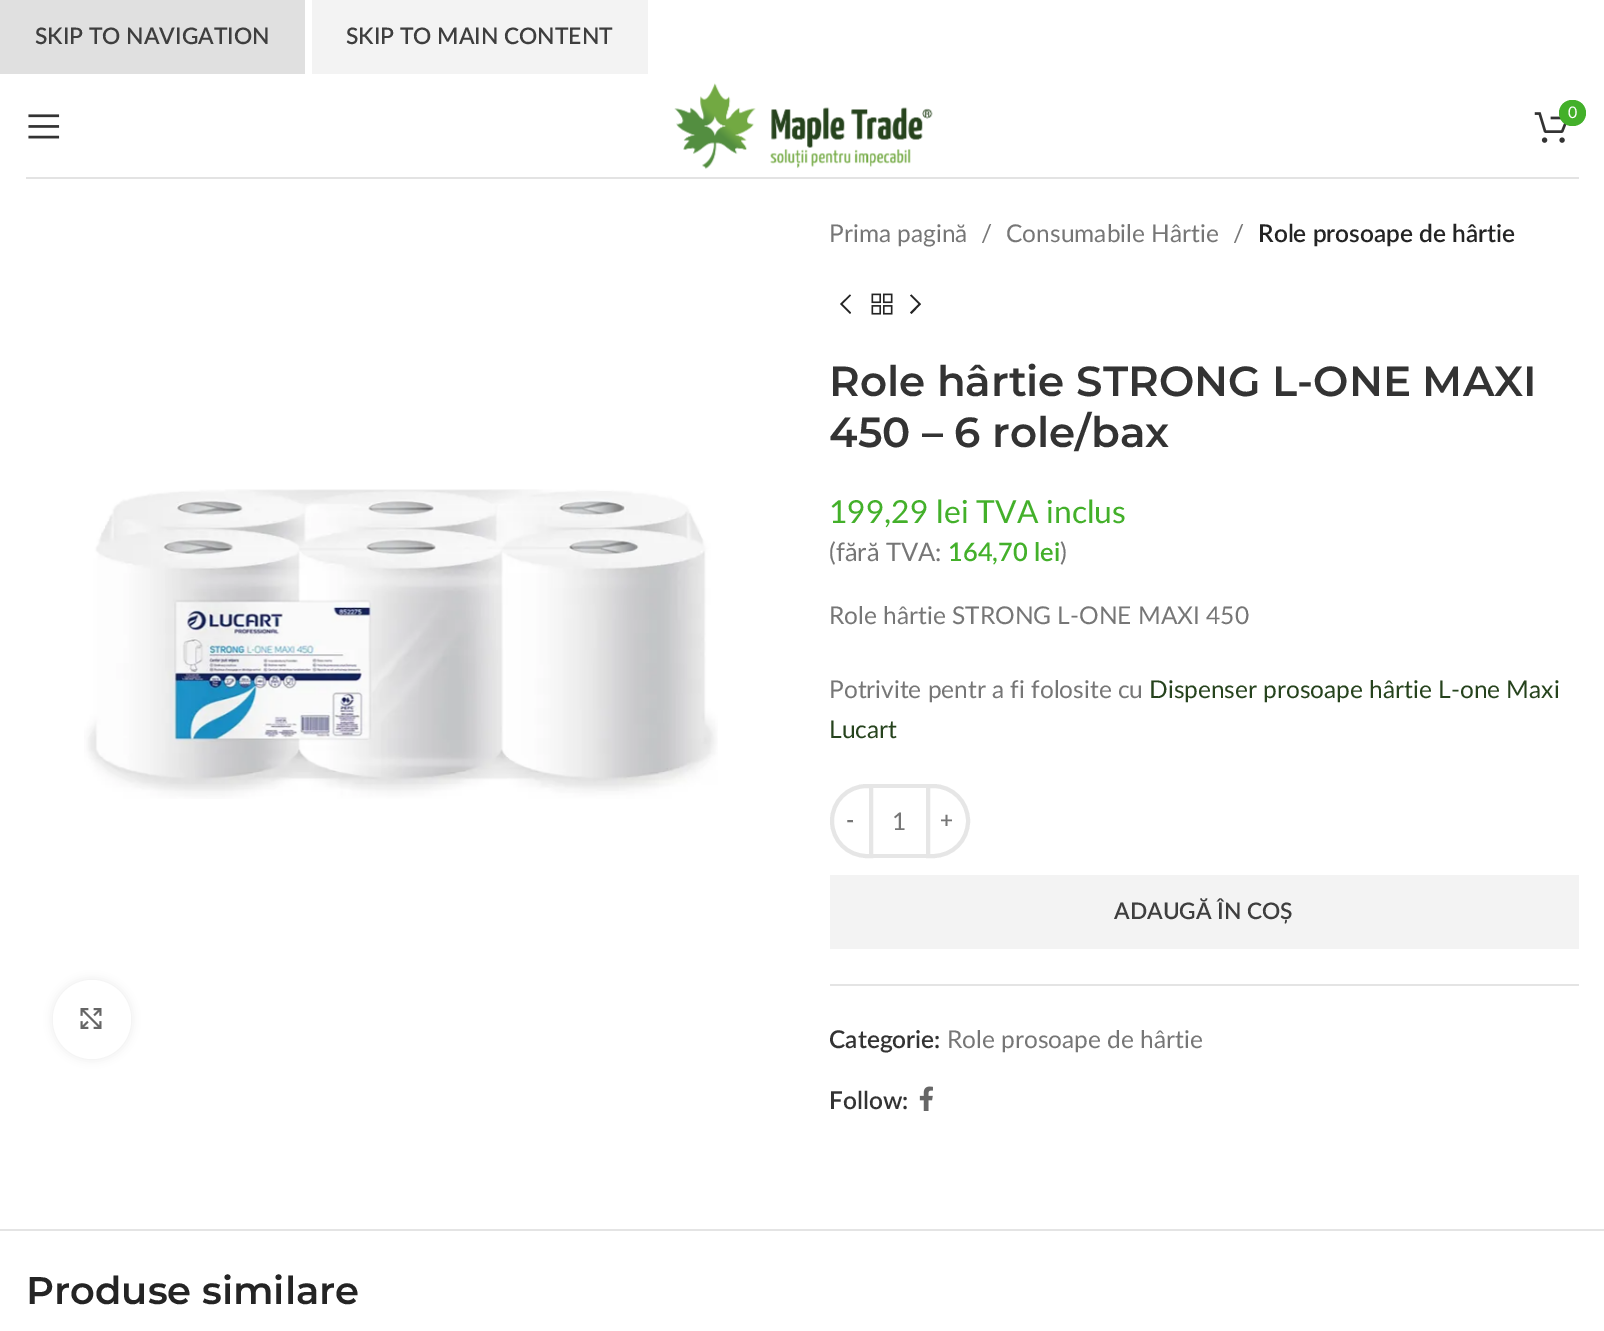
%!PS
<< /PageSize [1604 1331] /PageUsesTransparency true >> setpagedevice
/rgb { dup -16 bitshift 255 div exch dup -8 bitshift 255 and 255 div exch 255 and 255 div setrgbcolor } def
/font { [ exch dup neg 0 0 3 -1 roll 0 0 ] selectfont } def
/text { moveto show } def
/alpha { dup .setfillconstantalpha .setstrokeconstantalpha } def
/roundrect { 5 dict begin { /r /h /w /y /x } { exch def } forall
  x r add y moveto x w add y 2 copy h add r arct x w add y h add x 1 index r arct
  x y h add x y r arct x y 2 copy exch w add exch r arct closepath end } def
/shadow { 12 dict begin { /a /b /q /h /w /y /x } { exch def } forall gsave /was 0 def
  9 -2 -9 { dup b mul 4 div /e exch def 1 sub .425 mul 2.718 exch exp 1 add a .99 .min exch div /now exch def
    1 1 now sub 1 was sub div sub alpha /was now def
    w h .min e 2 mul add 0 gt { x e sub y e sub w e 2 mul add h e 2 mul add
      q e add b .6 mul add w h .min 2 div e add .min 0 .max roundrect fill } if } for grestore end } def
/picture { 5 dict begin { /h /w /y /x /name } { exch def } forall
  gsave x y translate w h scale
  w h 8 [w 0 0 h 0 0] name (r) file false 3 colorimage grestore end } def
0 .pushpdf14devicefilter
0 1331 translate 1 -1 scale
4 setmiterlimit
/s1 { /Lato-SemiBold 22.75 font 16#3E3E3E rgb } def
/s2 { /Lato-Regular 16 font 16#FFFFFF rgb } def
/s3 { /Lato-Regular 24.5 font 16#767676 rgb } def
/s4 { /Lato-SemiBold 24.5 font 16#242424 rgb } def
/s5 { /Montserrat-SemiBold 42 font 16#333333 rgb } def
/s6 { /Lato-Regular 31.75 font 16#43B02A rgb } def
/s7 { /Lato-Regular 25.5 font 16#767676 rgb } def
/s8 { /Lato-SemiBold 25.5 font 16#43B02A rgb } def
/s9 { /Lato-Regular 24.5 font 16#26431D rgb } def
/s10 { /Lato-SemiBold 22.75 font 16#767676 rgb } def
/s11 { /Lato-SemiBold 24.5 font 16#333333 rgb } def
/s12 { /Montserrat-SemiBold 38.5 font 16#242424 rgb } def
16#FFFFFF rgb
0 0 1604 1331 rectfill
16#E0E0E0 rgb
0 0 305 74 rectfill
s1
(SKIP TO NAVIGATION) 35 44 text
16#F3F3F3 rgb
312 0 336 74 rectfill
s1
(SKIP TO MAIN CONTENT) 346 44 text
16#E3E3E3 rgb
26 177 1553 2 rectfill
(pic1.raw) 674 83 259 86 picture
(pic2.raw) 1534 112 33 31 picture
16#43B02A rgb
1559 100 27 26 13 roundrect fill
s2
(0) 1568 118 text
(pic3.raw) 28 114 32 25 picture
(pic4.raw) 84 489 634 310 picture
16#000000 rgb
53 980 78 79 39 4.5 0.08 shadow
16#FFFFFF rgb
53 980 78 79 39 roundrect fill
(pic5.raw) 80 1008 22 21 picture
s3
(Prima pagină) 829 242 text
(/) 981 242 text
(Consumabile Hârtie) 1006 242 text
(/) 1233 242 text
s4
(Role prosoape de hârtie) 1258 242 text
851 295.5 moveto 850 294.5 lineto 840 304 lineto 850 314 lineto 851 312.5 lineto 842.5 304 lineto closepath fill
(pic6.raw) 871 293 22 22 picture
910 295.5 moveto 918.5 304 lineto 910 312.5 lineto 911.5 314 lineto 921 304 lineto 911.5 294.5 lineto closepath fill
s5
(Role hârtie STRONG L-ONE MAXI) 829 396 text
(450 – 6 role/bax) 829 447 text
s6
(199,29 lei TVA inclus) 829 523 text
s7
(\(fără TVA:) 829 561 text
s8
(164,70 lei) 948 561 text
s7
(\)) 1060 561 text
s3
(Role hârtie STRONG L-ONE MAXI 450) 829 624 text
(Potrivite pentr a fi folosite cu) 829 698 text
s9
(Dispenser prosoape hârtie L-one Maxi) 1149 698 text
(Lucart) 829 738 text
16#E6E6E6 rgb
4 setlinewidth
867 786 moveto 871 786 lineto 871 856 lineto 867 856 lineto 847.5 856 832 840.5 832 821 curveto 832 801.5 847.5 786 867 786 curveto closepath stroke
s10
(-) 846 828 text
16#E6E6E6 rgb
873 784 53 4 rectfill
873 854 53 4 rectfill
s3
(1) 892 830 text
16#E6E6E6 rgb
928 786 moveto 933 786 lineto 952.5 786 968 801.5 968 821 curveto 968 840.5 952.5 856 933 856 curveto 928 856 lineto closepath stroke
s10
(+) 940 828 text
16#F3F3F3 rgb
830 875 749 74 rectfill
s1
(ADAUGĂ ÎN COȘ) 1114 919 text
16#E4E4E4 rgb
830 984 749 2 rectfill
s11
(Categorie:) 829 1048 text
s3
(Role prosoape de hârtie) 947 1048 text
s11
(Follow:) 829 1109 text
(pic7.raw) 919 1086 14 25 picture
16#E4E4E4 rgb
0 1229 1604 2 rectfill
s12
(Produse similare) 26 1304 text
.poppdf14devicefilter showpage
